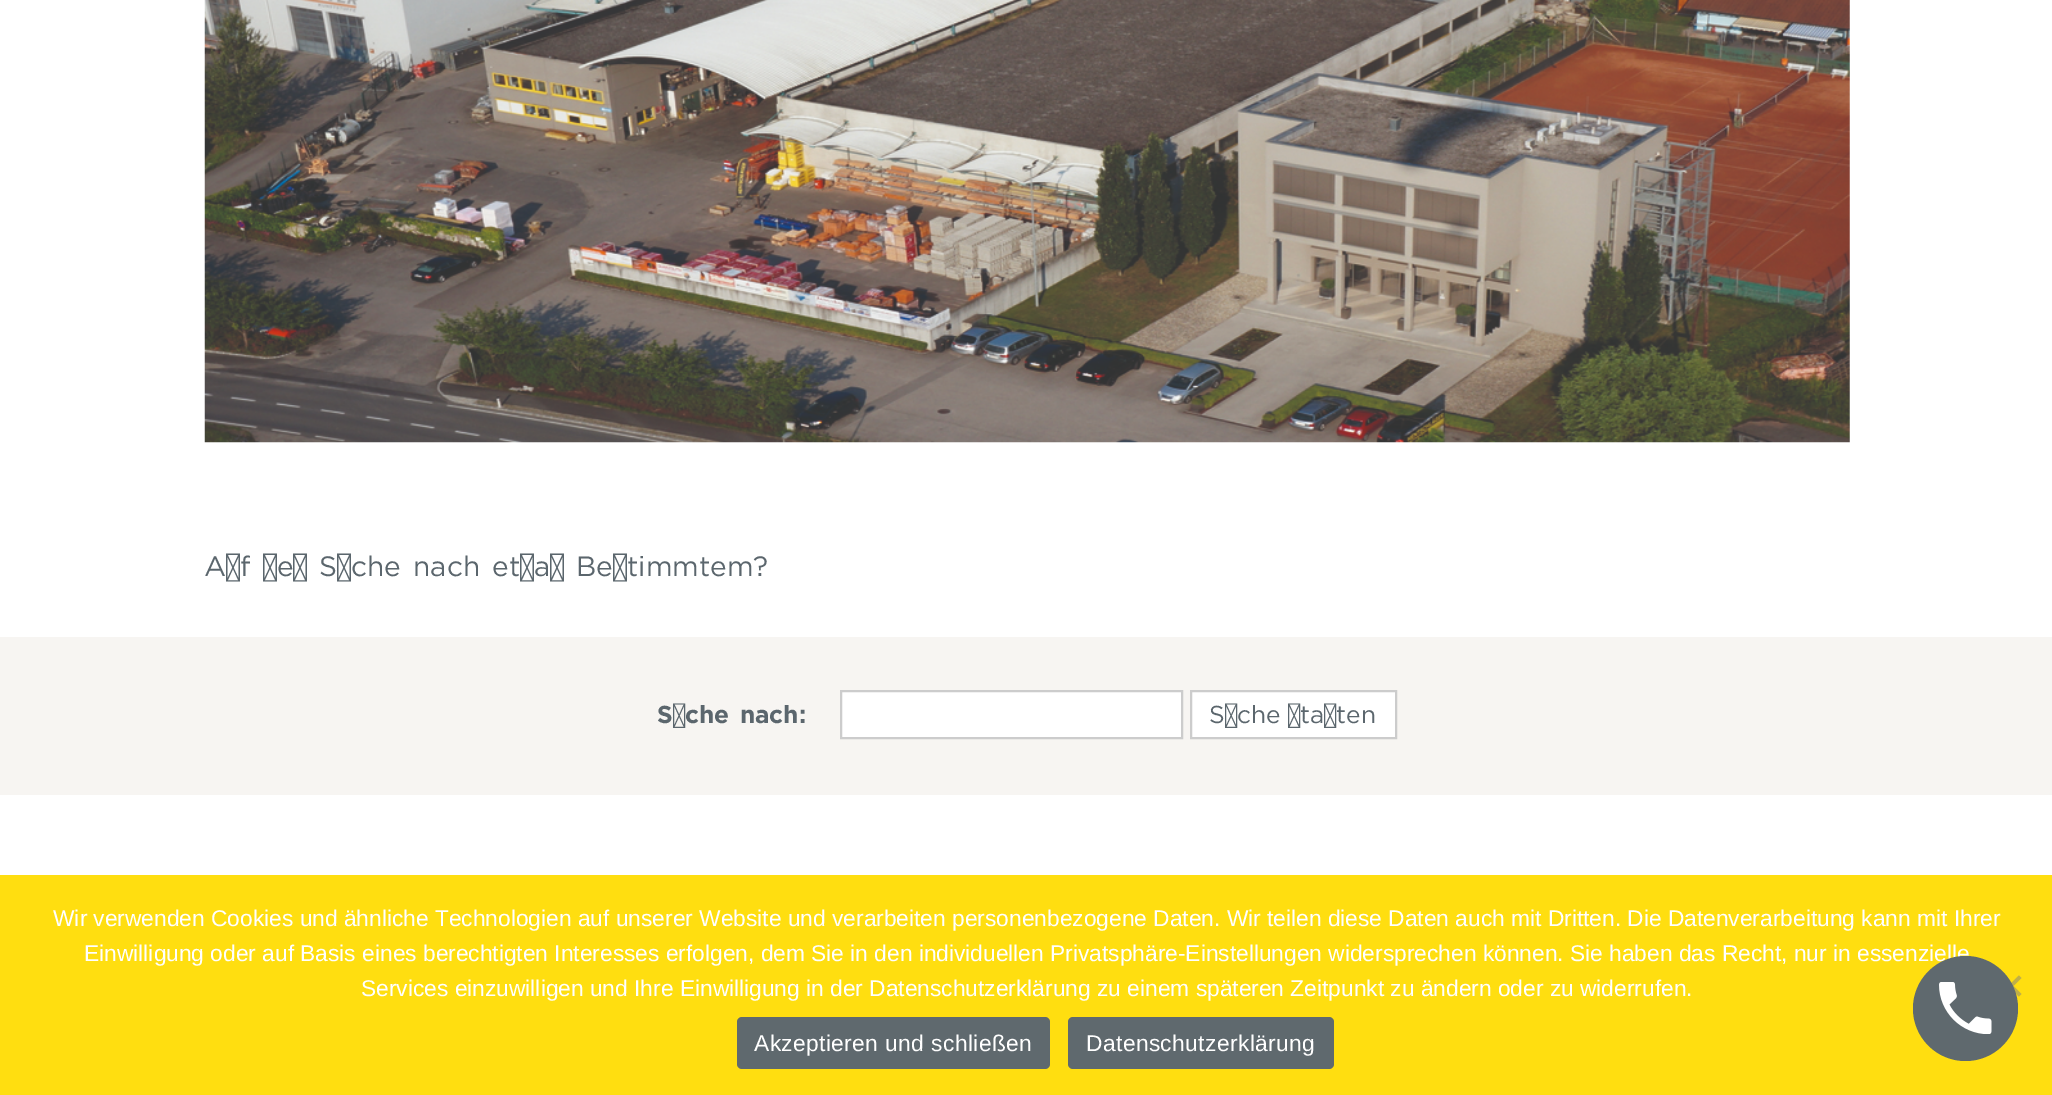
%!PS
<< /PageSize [2052 1095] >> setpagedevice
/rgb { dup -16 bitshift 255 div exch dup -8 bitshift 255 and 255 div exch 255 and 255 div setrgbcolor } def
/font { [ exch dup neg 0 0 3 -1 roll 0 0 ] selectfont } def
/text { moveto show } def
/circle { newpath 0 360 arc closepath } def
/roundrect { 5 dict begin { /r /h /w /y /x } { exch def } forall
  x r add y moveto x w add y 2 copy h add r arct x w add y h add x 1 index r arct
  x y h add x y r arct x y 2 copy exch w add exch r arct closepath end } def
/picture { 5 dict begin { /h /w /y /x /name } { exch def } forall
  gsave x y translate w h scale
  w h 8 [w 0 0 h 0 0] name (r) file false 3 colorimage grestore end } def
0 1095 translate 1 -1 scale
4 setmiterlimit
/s1 { /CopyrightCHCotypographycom-Light 24.5 font 16#5B666D rgb } def
/s2 { /LiberationSans-Regular 22.75 font 16#FFFFFF rgb } def
16#FFFFFF rgb
0 0 2052 1095 rectfill
(pic1.raw) 204 0 1646 443 picture
/CopyrightCHCotypographycom-Light 28 font
16#5B666D rgb
204 576 moveto 3.75 0 32 (Auf der Suche nach etwas Bestimmtem?) widthshow
16#F7F5F2 rgb
0 637 2052 158 rectfill
/CopyrightCHCotypographycom-Regular 24.5 font
16#5B666D rgb
657 723 moveto 3 0 32 (Suche nach:) widthshow
16#FFFFFF rgb
841 691 moveto 1182 691 lineto 1182 738 lineto 841 738 lineto closepath gsave fill grestore
16#CCCCCC rgb
2 setlinewidth
stroke
16#FFFFFF rgb
1191 691 moveto 1396 691 lineto 1396 738 lineto 1191 738 lineto closepath gsave fill grestore
16#CCCCCC rgb
stroke
s1
(Suche starten) 1209 723 text
16#FFDE10 rgb
0 875 2052 220 rectfill
s2
(Wir verwenden Cookies und ähnliche Technologien auf unserer Website und verarbeiten personenbezogene Daten. Wir teilen diese Daten auch mit Dritten. Die Datenverarbeitung kann mit Ihrer) 53 926 text
(Einwilligung oder auf Basis eines berechtigten Interesses erfolgen, dem Sie in den individuellen Privatsphäre-Einstellungen widersprechen können. Sie haben das Recht, nur in essenzielle) 84 961 text
(Services einzuwilligen und Ihre Einwilligung in der Datenschutzerklärung zu einem späteren Zeitpunkt zu ändern oder zu widerrufen.) 361 996 text
16#C0AF48 rgb
2019 975.5 moveto 2021.5 978 lineto 2002.5 996.5 lineto 2000 994 lineto closepath fill
2000 978 moveto 2002.5 975.5 lineto 2021.5 994 lineto 2019 996.5 lineto closepath fill
16#5F696E rgb
737 1017 313 52 5 roundrect fill
16#FFFFFF rgb
754 1051 moveto 0.4 0 (Akzeptieren und schließen) ashow
16#5F696E rgb
1068 1017 266 52 5 roundrect fill
16#FFFFFF rgb
1086 1051 moveto 0.4 0 (Datenschutzerklärung) ashow
16#5F696E rgb
1965.5 1008.5 52.5 circle fill
(pic2.raw) 1939 982 53 52 picture
showpage
